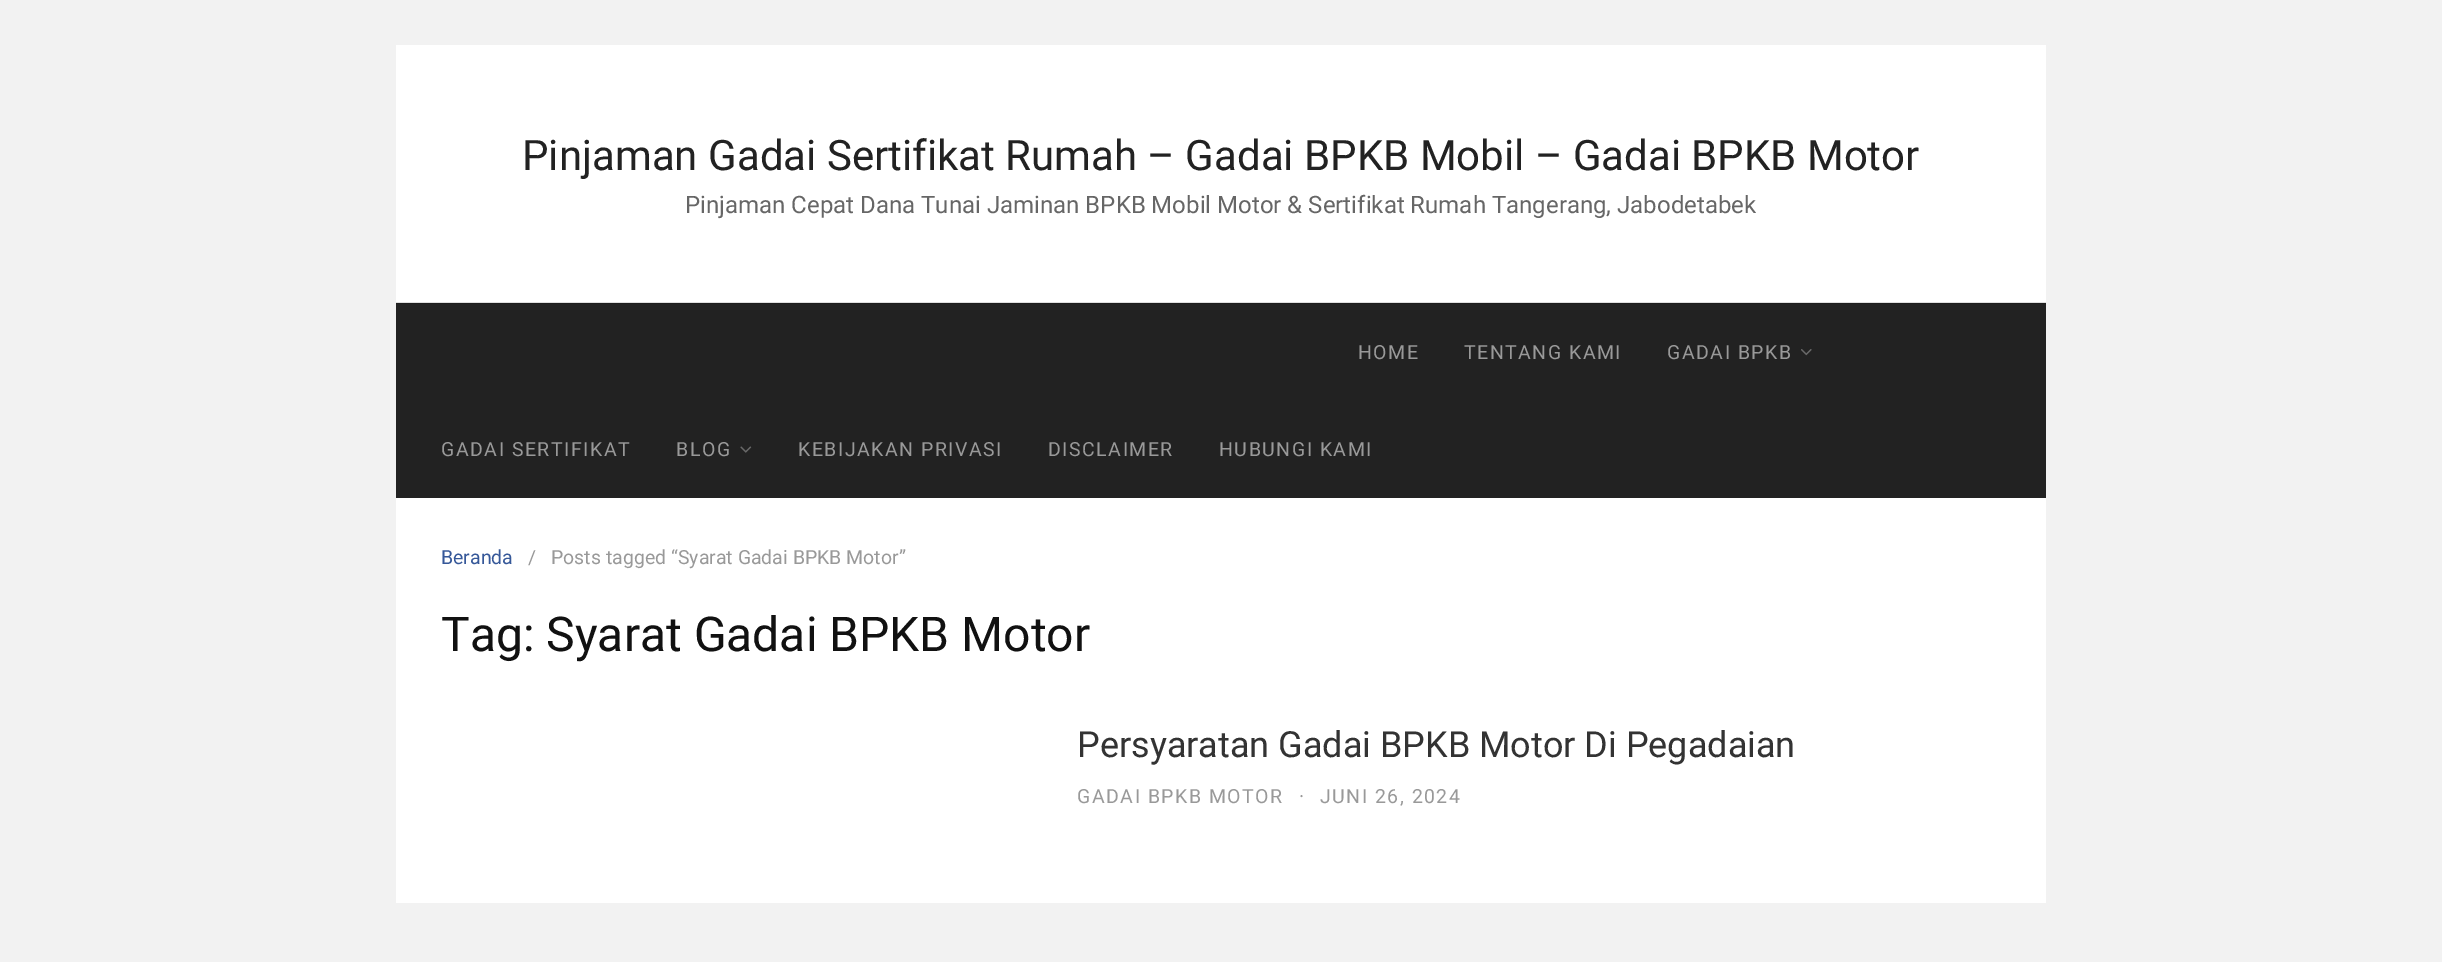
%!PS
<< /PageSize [2442 962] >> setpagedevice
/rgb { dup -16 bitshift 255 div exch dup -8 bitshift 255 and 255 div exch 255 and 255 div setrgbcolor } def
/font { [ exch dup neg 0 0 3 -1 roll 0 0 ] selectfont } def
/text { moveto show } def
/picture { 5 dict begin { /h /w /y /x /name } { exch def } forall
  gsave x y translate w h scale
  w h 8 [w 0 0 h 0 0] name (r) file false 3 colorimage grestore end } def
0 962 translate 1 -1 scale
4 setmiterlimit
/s1 { /Roboto-Regular 42 font 16#222222 rgb } def
/s2 { /Roboto-Regular 24 font 16#666666 rgb } def
/s3 { /Roboto-Regular 19.5 font 16#365899 rgb } def
/s4 { /Roboto-Regular 19.5 font 16#999999 rgb } def
/s5 { /Roboto-Regular 48 font 16#111111 rgb } def
/s6 { /Roboto-Regular 36 font 16#333333 rgb } def
16#F2F2F2 rgb
0 0 2442 962 rectfill
16#FFFFFF rgb
396 45 1650 257 rectfill
16#E0E0E0 rgb
396 302 1650 1 rectfill
s1
(Pinjaman Gadai Sertifikat Rumah – Gadai BPKB Mobil – Gadai BPKB Motor) 522 170 text
s2
(Pinjaman Cepat Dana Tunai Jaminan BPKB Mobil Motor & Sertifikat Rumah Tangerang, Jabodetabek) 685 213 text
16#FFFFFF rgb
396 498 1650 405 rectfill
16#222222 rgb
396 304 1650 194 rectfill
16#1E1E1E rgb
396 303 1650 1 rectfill
/Roboto-Regular 19.5 font
16#999999 rgb
1358 359 moveto 1.5 0 (HOME) ashow
1464 359 moveto 1.5 0 (TENTANG KAMI) ashow
1667 359 moveto 1.5 0 (GADAI BPKB) ashow
(pic1.raw) 1801 349 11 7 picture
441 456 moveto 1.5 0 (GADAI SERTIFIKAT) ashow
676 456 moveto 1.5 0 (BLOG) ashow
(pic2.raw) 740 446 12 7 picture
798 456 moveto 1.5 0 (KEBIJAKAN PRIVASI) ashow
1048 456 moveto 1.5 0 (DISCLAIMER) ashow
1219 456 moveto 1.5 0 (HUBUNGI KAMI) ashow
s3
(Beranda) 441 564 text
s4
(/) 528 564 text
(Posts tagged “Syarat Gadai BPKB Motor”) 551 564 text
s5
(Tag: Syarat Gadai BPKB Motor) 441 651 text
s6
(Persyaratan Gadai BPKB Motor Di Pegadaian) 1077 757 text
/Roboto-Regular 19.5 font
16#999999 rgb
1077 803 moveto 1.5 0 (GADAI BPKB MOTOR) ashow
1299 803 moveto 1.5 0 (·) ashow
1320 803 moveto 1.5 0 (JUNI 26, 2024) ashow
showpage
